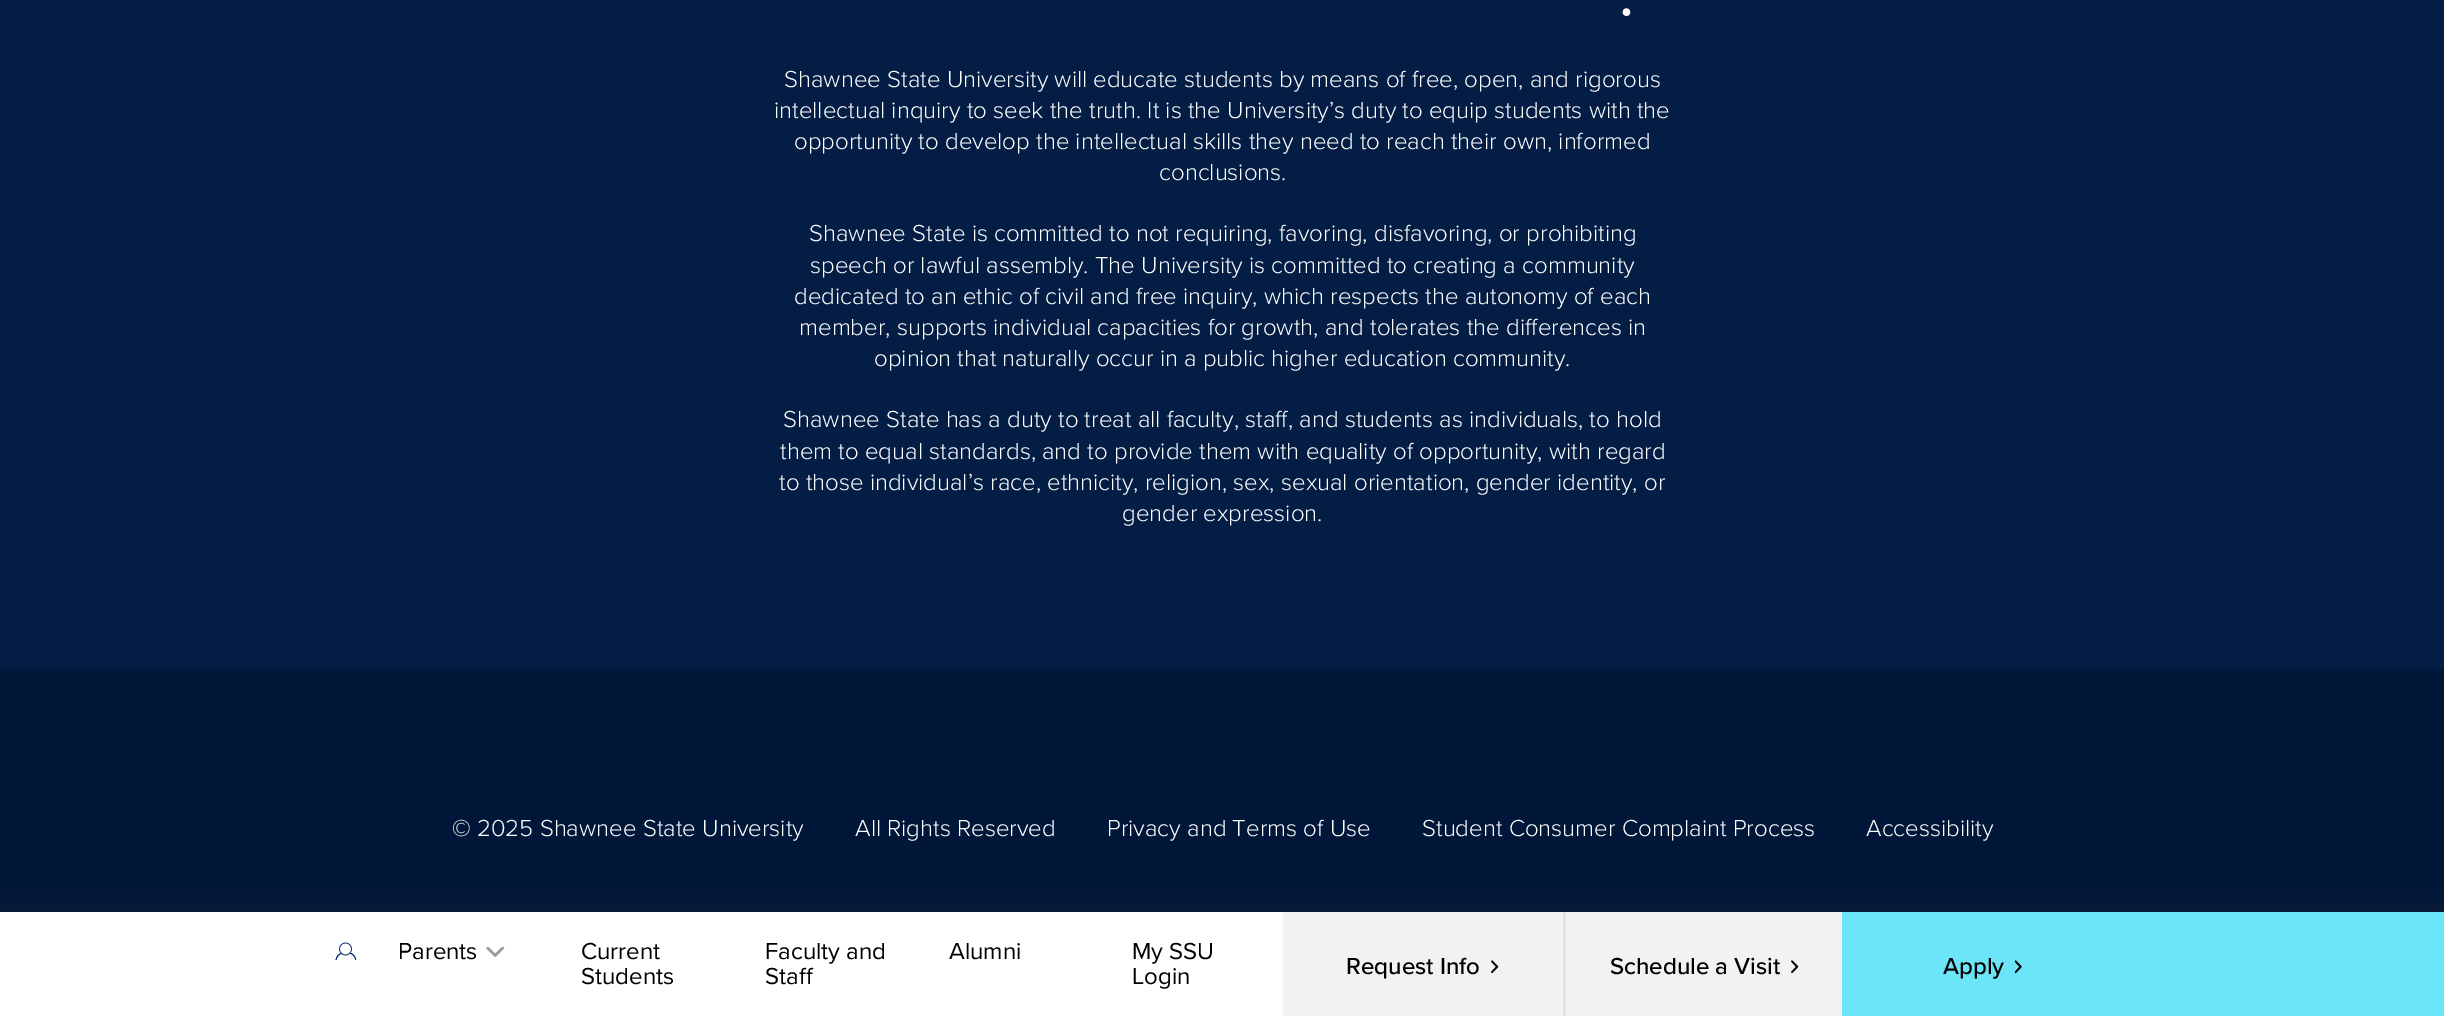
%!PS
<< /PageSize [2444 1016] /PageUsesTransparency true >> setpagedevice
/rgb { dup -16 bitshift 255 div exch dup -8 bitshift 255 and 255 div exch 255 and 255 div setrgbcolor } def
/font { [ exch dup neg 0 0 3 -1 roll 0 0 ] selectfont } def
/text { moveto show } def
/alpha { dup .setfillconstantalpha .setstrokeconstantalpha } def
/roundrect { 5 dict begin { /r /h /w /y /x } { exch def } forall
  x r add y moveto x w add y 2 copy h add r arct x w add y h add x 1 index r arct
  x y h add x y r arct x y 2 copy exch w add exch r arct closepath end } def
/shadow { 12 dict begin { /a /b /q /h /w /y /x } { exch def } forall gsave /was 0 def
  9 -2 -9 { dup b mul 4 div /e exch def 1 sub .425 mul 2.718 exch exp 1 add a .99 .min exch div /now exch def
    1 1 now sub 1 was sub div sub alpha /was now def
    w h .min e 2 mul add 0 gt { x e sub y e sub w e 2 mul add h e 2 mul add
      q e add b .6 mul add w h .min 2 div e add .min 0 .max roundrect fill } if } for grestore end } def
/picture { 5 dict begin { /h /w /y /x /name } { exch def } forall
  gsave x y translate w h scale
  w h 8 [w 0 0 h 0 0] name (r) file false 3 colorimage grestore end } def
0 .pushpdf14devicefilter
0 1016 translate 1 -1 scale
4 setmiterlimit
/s1 { /AdobeGaramond-Regular 68 font 16#FFFFFF rgb } def
/s2 { /ProximaNova-Light 24 font 16#FFFFFF rgb } def
/s3 { /ProximaNova-Regular 24 font 16#000000 rgb } def
/s4 { /ProximaNova-Medium 24 font 16#000000 rgb } def
16#031D45 rgb
0 0 2444 1016 rectfill
s1
(.) 1618 15 text
s2
(Shawnee State University will educate students by means of free, open, and rigorous) 784 87 text
(intellectual inquiry to seek the truth. It is the University’s duty to equip students with the) 774 118 text
(opportunity to develop the intellectual skills they need to reach their own, informed) 794 149 text
(conclusions.) 1159 180 text
(Shawnee State is committed to not requiring, favoring, disfavoring, or prohibiting) 809 241 text
(speech or lawful assembly. The University is committed to creating a community) 810 273 text
(dedicated to an ethic of civil and free inquiry, which respects the autonomy of each) 794 304 text
(member, supports individual capacities for growth, and tolerates the differences in) 799 335 text
(opinion that naturally occur in a public higher education community.) 874 366 text
(Shawnee State has a duty to treat all faculty, staff, and students as individuals, to hold) 783 427 text
(them to equal standards, and to provide them with equality of opportunity, with regard) 780 459 text
(to those individual’s race, ethnicity, religion, sex, sexual orientation, gender identity, or) 779 490 text
(gender expression.) 1122 521 text
16#001739 rgb
0 669 2444 243 rectfill
s2
(© 2025 Shawnee State University) 452 836 text
(All Rights Reserved) 855 836 text
(Privacy and Terms of Use) 1107 836 text
(Student Consumer Complaint Process) 1422 836 text
(Accessibility) 1866 836 text
16#262626 rgb
0 915 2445 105 0 13 0.61 shadow
16#FFFFFF rgb
0 912 1283 104 rectfill
16#6DE5F8 rgb
1842 912 602 104 rectfill
16#F2F2F2 rgb
1283 912 559 104 rectfill
(pic1.raw) 335 942 22 18 picture
s3
(Parents) 398 959 text
(pic2.raw) 486 947 19 10 picture
(Current) 581 959 text
(Students) 581 984 text
(Faculty and) 765 959 text
(Staff) 765 984 text
(Alumni) 949 959 text
(My SSU) 1132 959 text
(Login) 1132 984 text
s4
(Request Info) 1346 974 text
(pic3.raw) 1491 960 8 14 picture
16#E3E3E3 rgb
1563 912 3 104 rectfill
s4
(Schedule a Visit) 1610 974 text
(pic3.raw) 1791 960 8 14 picture
(Apply) 1943 974 text
(pic4.raw) 2015 960 7 14 picture
.poppdf14devicefilter showpage
